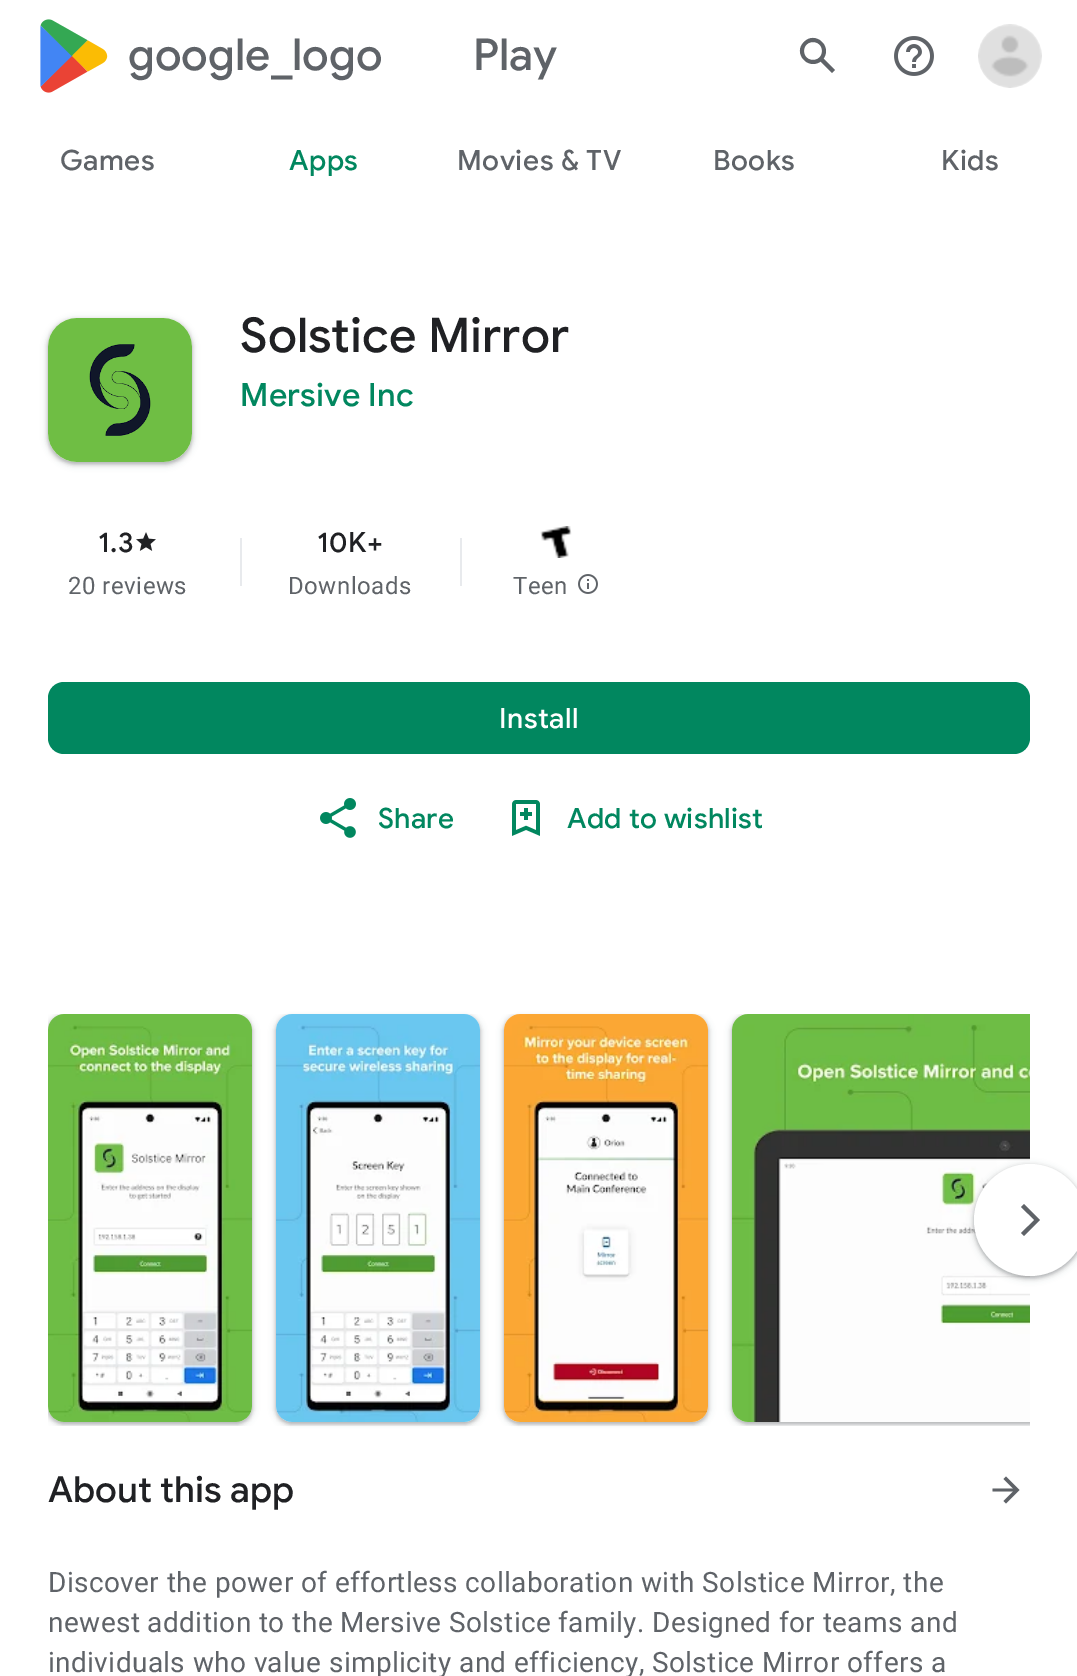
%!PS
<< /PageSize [1077 1676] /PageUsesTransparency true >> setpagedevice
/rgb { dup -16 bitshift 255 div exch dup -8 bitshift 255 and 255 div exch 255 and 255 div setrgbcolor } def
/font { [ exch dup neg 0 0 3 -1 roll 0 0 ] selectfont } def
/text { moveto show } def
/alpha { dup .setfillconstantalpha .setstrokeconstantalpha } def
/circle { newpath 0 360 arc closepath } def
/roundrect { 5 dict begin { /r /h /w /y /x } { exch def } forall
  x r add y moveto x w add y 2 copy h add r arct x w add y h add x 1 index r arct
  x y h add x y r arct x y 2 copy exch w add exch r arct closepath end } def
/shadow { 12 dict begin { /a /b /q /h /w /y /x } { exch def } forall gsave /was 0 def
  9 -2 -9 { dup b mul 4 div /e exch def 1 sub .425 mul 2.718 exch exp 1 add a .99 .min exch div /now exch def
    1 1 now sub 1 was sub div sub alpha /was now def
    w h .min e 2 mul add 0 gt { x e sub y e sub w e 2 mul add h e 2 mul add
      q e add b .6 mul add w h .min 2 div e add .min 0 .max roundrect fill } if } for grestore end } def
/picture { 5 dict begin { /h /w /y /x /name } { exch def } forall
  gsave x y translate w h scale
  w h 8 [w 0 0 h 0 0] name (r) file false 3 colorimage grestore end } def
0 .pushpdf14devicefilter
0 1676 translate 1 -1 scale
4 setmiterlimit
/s1 { /GoogleSans-Medium 48 font 16#202124 rgb } def
/s2 { /GoogleSans-Medium 36 font 16#202124 rgb } def
16#FFFFFF rgb
0 0 1077 1676 rectfill
(pic1.raw) 40 19 68 74 picture
/GoogleSans-Medium 44 font
16#5F6368 rgb
128 70 moveto 110 0 32 (google_logo) widthshow
473 70 moveto 110 0 32 (Play) widthshow
835 70 moveto 823.5 58.5 lineto 832.5 46 815 30.5 804 42 curveto 792.5 53 808 70.5 820.5 61.5 curveto 832 73 lineto closepath 804 51 moveto 804 39 822 39 822 51 curveto 822 63 804 63 804 51 curveto closepath fill
(pic2.raw) 894 36 40 40 picture
(pic3.raw) 978 24 64 64 picture
/GoogleSans-Medium 28 font
60 170 moveto 0.5 0 (Games) ashow
16#01875F rgb
289 170 moveto 0.5 0 (Apps) ashow
16#5F6368 rgb
457 170 moveto 0.5 0 (Movies & TV) ashow
713 170 moveto 0.5 0 (Books) ashow
941 170 moveto 0.5 0 (Kids) ashow
16#3C4043 rgb
46 318 148 148 30 3 0.15 shadow
48 320 144 144 28 2 0.3 shadow
(pic4.raw) 48 318 144 144 picture
s1
(Solstice Mirror) 240 352 text
/GoogleSans-Medium 32 font
16#01875F rgb
240 406 moveto 0.25 0 (Mersive Inc) ashow
/GoogleSans-Medium 28 font
16#202124 rgb
98 552 moveto 0.5 0 (1.3) ashow
(pic5.raw) 136 532 20 19 picture
/Roboto-Regular 24 font
16#5F6368 rgb
68 594 moveto 0.5 0 (20 reviews) ashow
16#E8EAED rgb
240 538 2 48 rectfill
/GoogleSans-Medium 28 font
16#202124 rgb
317 552 moveto 0.5 0 (10K+) ashow
/Roboto-Regular 24 font
16#5F6368 rgb
288 594 moveto 0.5 0 (Downloads) ashow
16#E8EAED rgb
460 538 2 48 rectfill
(pic6.raw) 540 526 32 32 picture
16#5F6368 rgb
513 594 moveto 0.5 0 (Teen) ashow
(pic7.raw) 578 574 20 20 picture
16#01875F rgb
48 682 982 72 16 roundrect fill
/GoogleSans-Medium 28 font
16#FFFFFF rgb
499 728 moveto 0.5 0 (Install) ashow
(pic8.raw) 320 798 36 40 picture
16#01875F rgb
378 828 moveto 0.25 0 (Share) ashow
(pic9.raw) 512 800 28 36 picture
567 828 moveto 0.25 0 (Add to wishlist) ashow
gsave
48 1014 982 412 rectclip
16#3C4043 rgb
46 1014 208 412 18 3 0.15 shadow
48 1016 204 408 16 2 0.3 shadow
grestore
(pic10.raw) 48 1014 204 408 picture
gsave
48 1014 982 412 rectclip
16#3C4043 rgb
274 1014 208 412 18 3 0.15 shadow
grestore
16#3C4043 rgb
276 1016 204 408 16 2 0.3 shadow
(pic11.raw) 276 1014 204 408 picture
gsave
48 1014 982 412 rectclip
502 1014 208 412 18 3 0.15 shadow
grestore
504 1016 204 408 16 2 0.3 shadow
(pic12.raw) 504 1014 204 408 picture
gsave
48 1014 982 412 rectclip
730 1014 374 412 18 3 0.15 shadow
732 1016 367 408 16 2 0.3 shadow
grestore
(pic13.raw) 732 1014 298 408 picture
972 1164 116 116 58 3 0.15 shadow
974 1166 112 112 56 2 0.3 shadow
16#FFFFFF rgb
1030 1220 56 circle fill
16#5F6368 rgb
1021 1233 moveto 1024 1236 lineto 1040 1220 lineto 1024 1204 lineto 1021 1207 lineto 1034.5 1220 lineto closepath fill
s2
(About this app) 48 1502 text
16#5F6368 rgb
1006 1476.5 moveto 1003.5 1479 lineto 1013 1488.5 lineto 992.5 1488.5 lineto 992.5 1491.5 lineto 1013 1491.5 lineto 1003.5 1501 lineto 1006 1503.5 lineto 1019.5 1490 lineto closepath fill
/Roboto-Regular 28 font
48 1592 moveto 0.4 0 (Discover the power of effortless collaboration with Solstice Mirror, the) ashow
48 1632 moveto 0.4 0 (newest addition to the Mersive Solstice family. Designed for teams and) ashow
48 1672 moveto 0.4 0 (individuals who value simplicity and efficiency, Solstice Mirror offers a) ashow
.poppdf14devicefilter showpage
